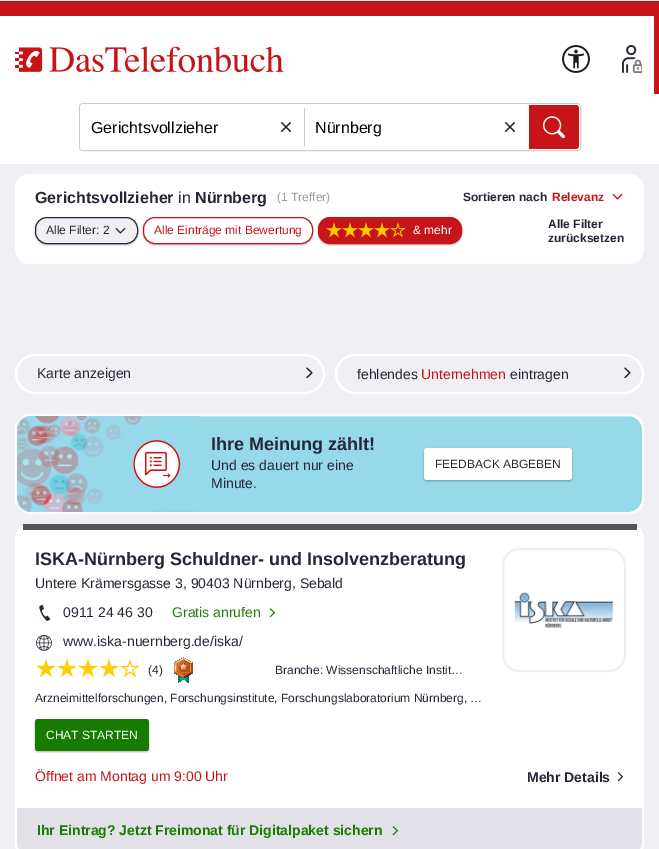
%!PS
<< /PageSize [659 849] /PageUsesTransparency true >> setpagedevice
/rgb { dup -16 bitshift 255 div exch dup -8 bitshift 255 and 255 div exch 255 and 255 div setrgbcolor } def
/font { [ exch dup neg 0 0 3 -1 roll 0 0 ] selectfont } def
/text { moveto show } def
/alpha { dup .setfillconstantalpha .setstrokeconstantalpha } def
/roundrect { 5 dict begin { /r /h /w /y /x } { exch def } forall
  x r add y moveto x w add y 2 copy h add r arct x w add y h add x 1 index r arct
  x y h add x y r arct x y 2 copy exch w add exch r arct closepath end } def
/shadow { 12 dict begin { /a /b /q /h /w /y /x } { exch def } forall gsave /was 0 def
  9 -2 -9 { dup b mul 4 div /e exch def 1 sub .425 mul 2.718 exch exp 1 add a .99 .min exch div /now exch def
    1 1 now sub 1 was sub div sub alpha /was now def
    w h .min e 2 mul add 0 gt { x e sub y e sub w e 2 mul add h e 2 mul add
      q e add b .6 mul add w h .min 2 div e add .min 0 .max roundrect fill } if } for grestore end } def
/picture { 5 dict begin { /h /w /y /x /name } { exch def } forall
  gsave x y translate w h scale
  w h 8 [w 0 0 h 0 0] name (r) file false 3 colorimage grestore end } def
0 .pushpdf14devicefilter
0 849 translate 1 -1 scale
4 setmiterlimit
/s1 { /LiberationSans-Regular 16 font 16#000000 rgb } def
/s2 { /LiberationSans-Regular 24 font 16#262637 rgb } def
/s3 { /LiberationSans-Bold 16 font 16#262637 rgb } def
/s4 { /LiberationSans-Regular 16 font 16#262637 rgb } def
/s5 { /LiberationSans-Regular 12 font 16#9999A3 rgb } def
/s6 { /LiberationSans-Bold 12 font 16#262637 rgb } def
/s7 { /LiberationSans-Bold 12 font 16#C71418 rgb } def
/s8 { /LiberationSans-Regular 12 font 16#262637 rgb } def
/s9 { /LiberationSans-Regular 12 font 16#C71418 rgb } def
/s10 { /LiberationSans-Regular 12 font 16#FFFFFF rgb } def
/s11 { /LiberationSans-Regular 14 font 16#262637 rgb } def
/s12 { /LiberationSans-Regular 14 font 16#C71418 rgb } def
/s13 { /LiberationSans-Bold 18 font 16#262637 rgb } def
/s14 { /LiberationSans-Regular 14 font 16#237D0D rgb } def
/s15 { /LiberationSans-Bold 14 font 16#262637 rgb } def
/s16 { /LiberationSans-Bold 14 font 16#177B00 rgb } def
16#EFEFF4 rgb
0 0 659 849 rectfill
16#FFFFFF rgb
0 16 659 148 rectfill
16#C71418 rgb
0 1 659 15 rectfill
(pic1.raw) 15 46 269 27 picture
(pic2.raw) 562 45 28 28 picture
(pic3.raw) 622 45 20 28 picture
654 14 5 80 rectfill
16#CCCCD4 rgb
79.5 103.5 501 47 3.5 roundrect stroke
16#FFFFFF rgb
80 104 500 46 3 roundrect fill
s1
(Gerichtsvollzieher) 91 133 text
s2
(×) 279 135 text
16#CCCCD4 rgb
304 108 1 38 rectfill
s1
(Nürnberg) 315 133 text
s2
(×) 503 135 text
16#C71418 rgb
529 105 moveto 576 105 lineto 577.5 105 579 106.5 579 108 curveto 579 146 lineto 579 147.5 577.5 149 576 149 curveto 529 149 lineto closepath fill
(pic4.raw) 543 116 22 23 picture
16#FFFFFF rgb
15 189 629 60 rectfill
30 174 moveto 629 174 lineto 637.5 174 644 180.5 644 189 curveto 15 189 lineto 15 180.5 21.5 174 30 174 curveto closepath fill
s3
(Gerichtsvollzieher) 35 203 text
s4
(in) 178 203 text
s3
(Nürnberg) 195 203 text
s5
(\(1 Treffer\)) 277 201 text
s6
(Sortieren nach) 463 201 text
s7
(Relevanz) 552 201 text
(pic5.raw) 612 193 11 7 picture
16#000000 rgb
35 218 103 27 12 1 0.3 shadow
16#EFEFF4 rgb
35.5 217.5 102 26 11.5 roundrect gsave fill grestore
16#262637 rgb
stroke
s8
(Alle Filter: 2) 46 234 text
(pic6.raw) 115 228 11 6 picture
gsave
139 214 moveto 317 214 lineto 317 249 lineto 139 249 lineto closepath 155 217 moveto 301 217 lineto 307.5 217 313 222.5 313 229 curveto 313 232 lineto 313 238.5 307.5 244 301 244 curveto 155 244 lineto 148.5 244 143 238.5 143 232 curveto 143 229 lineto 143 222.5 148.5 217 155 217 curveto closepath eoclip newpath
16#000000 rgb
143 218 170 27 12 1 0.3 shadow
grestore
16#C71418 rgb
143.5 217.5 169 26 11.5 roundrect stroke
(Alle Einträge mit Bewertung) 154 234 text
16#000000 rgb
318 218 144 27 12 1 0.3 shadow
16#C71418 rgb
318.5 217.5 143 26 11.5 roundrect gsave fill grestore
stroke
(pic7.raw) 326 222 16 16 picture
(pic7.raw) 342 222 16 16 picture
(pic7.raw) 358 222 16 16 picture
(pic7.raw) 374 222 16 16 picture
(pic8.raw) 390 222 16 16 picture
s10
(& mehr) 413 234 text
s6
(Alle Filter) 548 228 text
(zurücksetzen) 548 242 text
16#FFFFFF rgb
15 249 moveto 644 249 lineto 644 257.5 637.5 264 629 264 curveto 30 264 lineto 21.5 264 15 257.5 15 249 curveto closepath fill
2 setlinewidth
16 355 308 38 19 roundrect stroke
s11
(Karte anzeigen) 37 378 text
(pic9.raw) 306 367 7 12 picture
16#FFFFFF rgb
336 355 307 38 19 roundrect stroke
s11
(fehlendes) 357 379 text
s12
(Unternehmen) 421 379 text
s11
(eintragen) 510 379 text
(pic9.raw) 624 367 7 12 picture
16#96DAEA rgb
16 415 627 98 14 roundrect gsave fill grestore
16#FFFFFF rgb
stroke
(pic10.raw) 17 416 182 96 picture
(pic11.raw) 133 440 48 48 picture
s13
(Ihre Meinung zählt!) 211 450 text
s11
(Und es dauert nur eine) 211 470 text
(Minute.) 211 488 text
16#000000 rgb
424 449 148 32 3 1 0.3 shadow
16#FFFFFF rgb
424 448 148 32 3 roundrect fill
s8
(FEEDBACK ABGEBEN) 435 468 text
16#FFFFFF rgb
15 524 629 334 15 roundrect fill
16#555555 rgb
23 524 614 6 rectfill
s13
(ISKA-Nürnberg Schuldner- und Insolvenzberatung) 35 565 text
s11
(Untere Krämersgasse 3, 90403 Nürnberg, Sebald) 35 588 text
(pic12.raw) 39 604 12 17 picture
(0911 24 46 30) 63 617 text
s14
(Gratis anrufen) 172 617 text
(pic13.raw) 269 608 6 10 picture
(pic14.raw) 36 635 16 16 picture
s11
(www.iska-nuernberg.de/iska/) 63 646 text
(pic15.raw) 36 658 20 20 picture
(pic15.raw) 57 658 20 20 picture
(pic15.raw) 78 658 20 20 picture
(pic15.raw) 99 658 20 20 picture
(pic16.raw) 120 658 20 20 picture
s8
(\(4\)) 148 674 text
(pic17.raw) 174 657 19 26 picture
(Branche: Wissenschaftliche Instit…) 275 674 text
(Arzneimittelforschungen, Forschungsinstitute, Forschungslaboratorium Nürnberg, …) 35 702 text
16#EFEFF4 rgb
503 549 122 122 16 roundrect stroke
(pic18.raw) 514 592 100 36 picture
16#000000 rgb
35 720 114 32 3 1 0.3 shadow
16#177B00 rgb
35 719 114 32 3 roundrect fill
s10
(CHAT STARTEN) 46 739 text
s12
(Öffnet am Montag um 9:00 Uhr) 35 781 text
s15
(Mehr Details) 527 782 text
(pic19.raw) 617 772 6 10 picture
16#E1E1E7 rgb
17 808 moveto 642 808 lineto 642 841 lineto 642 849.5 635.5 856 627 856 curveto 32 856 lineto 23.5 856 17 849.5 17 841 curveto closepath fill
s16
(Ihr Eintrag? Jetzt Freimonat für Digitalpaket sichern) 37 835 text
(pic20.raw) 392 826 6 10 picture
.poppdf14devicefilter showpage
